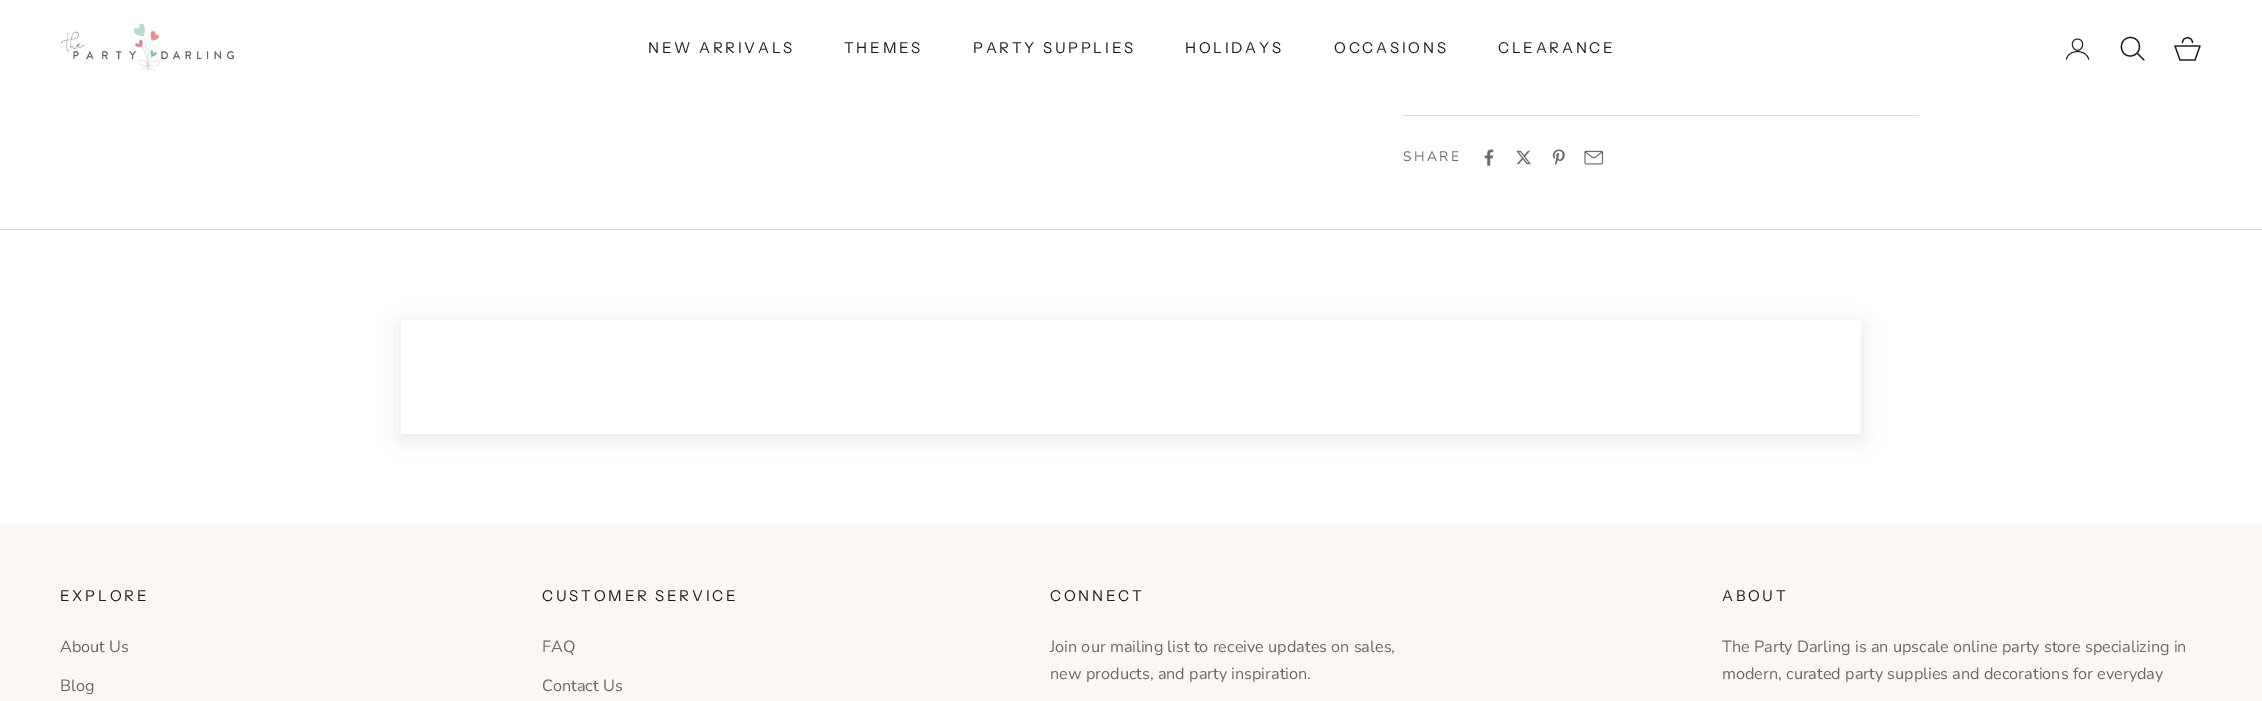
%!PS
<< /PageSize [2262 701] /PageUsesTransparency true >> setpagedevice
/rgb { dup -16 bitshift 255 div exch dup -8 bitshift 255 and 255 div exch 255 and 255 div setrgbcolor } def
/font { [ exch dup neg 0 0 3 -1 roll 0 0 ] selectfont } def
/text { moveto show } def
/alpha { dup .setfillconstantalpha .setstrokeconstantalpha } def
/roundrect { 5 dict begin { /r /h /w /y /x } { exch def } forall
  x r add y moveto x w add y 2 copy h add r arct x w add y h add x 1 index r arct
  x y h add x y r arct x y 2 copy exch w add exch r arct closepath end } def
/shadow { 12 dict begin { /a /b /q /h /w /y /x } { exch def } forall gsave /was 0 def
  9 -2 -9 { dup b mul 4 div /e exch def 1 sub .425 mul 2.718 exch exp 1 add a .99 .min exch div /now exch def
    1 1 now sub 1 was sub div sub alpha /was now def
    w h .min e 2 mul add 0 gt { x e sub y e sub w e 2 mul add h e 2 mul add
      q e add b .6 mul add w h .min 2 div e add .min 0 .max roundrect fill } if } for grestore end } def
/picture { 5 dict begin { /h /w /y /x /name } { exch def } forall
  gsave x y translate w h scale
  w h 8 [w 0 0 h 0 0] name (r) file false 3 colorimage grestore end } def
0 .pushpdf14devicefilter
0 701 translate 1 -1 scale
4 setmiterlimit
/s1 { /Nunito-Regular 16.25 font 16#6A6968 rgb } def
16#FFFFFF rgb
0 0 2262 701 rectfill
(pic1.raw) 60 23 174 49 picture
/InstrumentSans-Regular 15 font
16#1C1C1C rgb
648 53 moveto 2.75 0 (NEW ARRIVALS) ashow
844 53 moveto 2.75 0 (THEMES) ashow
973 53 moveto 2.75 0 (PARTY SUPPLIES) ashow
1185 53 moveto 2.75 0 (HOLIDAYS) ashow
1334 53 moveto 2.75 0 (OCCASIONS) ashow
1498 53 moveto 2.75 0 (CLEARANCE) ashow
(pic2.raw) 2065 38 25 22 picture
1.2 setlinewidth
2130.5 37.5 moveto 2118 37.5 2118.5 56.5 2130.5 56 curveto 2142.5 55.5 2142.5 37.5 2130.5 37.5 curveto closepath stroke
1 setlinecap
2137.5 53.5 moveto 2144 60 lineto stroke
1 setlinejoin
2175 46 moveto 2200 46 lineto 2195 60 lineto 2180 60 lineto closepath 2192.5 42.5 moveto 2192.5 36 2182.5 36 2182.5 42.5 curveto stroke
16#DDDDDD rgb
1403 115 516 1 rectfill
/Nunito-Regular 13.75 font
16#6A6968 rgb
1403 161 moveto 2.5 0 (SHARE) ashow
(pic3.raw) 1484 149 10 17 picture
(pic4.raw) 1516 150 15 15 picture
(pic5.raw) 1552 149 13 17 picture
(pic6.raw) 1584 150 20 15 picture
16#DDDDDD rgb
0 229 2262 1 rectfill
16#000000 rgb
401 325 1460 114 0 10 0.1 shadow
16#FFFFFF rgb
401 320 1460 114 rectfill
16#FCF7F5 rgb
0 524 2262 177 rectfill
/InstrumentSans-Regular 15 font
16#1C1C1C rgb
60 601 moveto 2.75 0 (EXPLORE) ashow
s1
(About Us) 60 652 text
(Blog) 60 691 text
/InstrumentSans-Regular 15 font
16#1C1C1C rgb
542 601 moveto 2.75 0 (CUSTOMER SERVICE) ashow
s1
(FAQ) 542 652 text
(Contact Us) 542 691 text
/InstrumentSans-Regular 15 font
16#1C1C1C rgb
1050 601 moveto 2.75 0 (CONNECT) ashow
s1
(Join our mailing list to receive updates on sales,) 1050 652 text
(new products, and party inspiration.) 1050 679 text
/InstrumentSans-Regular 15 font
16#1C1C1C rgb
1722 601 moveto 2.75 0 (ABOUT) ashow
s1
(The Party Darling is an upscale online party store specializing in) 1722 652 text
(modern, curated party supplies and decorations for everyday) 1722 679 text
.poppdf14devicefilter showpage
